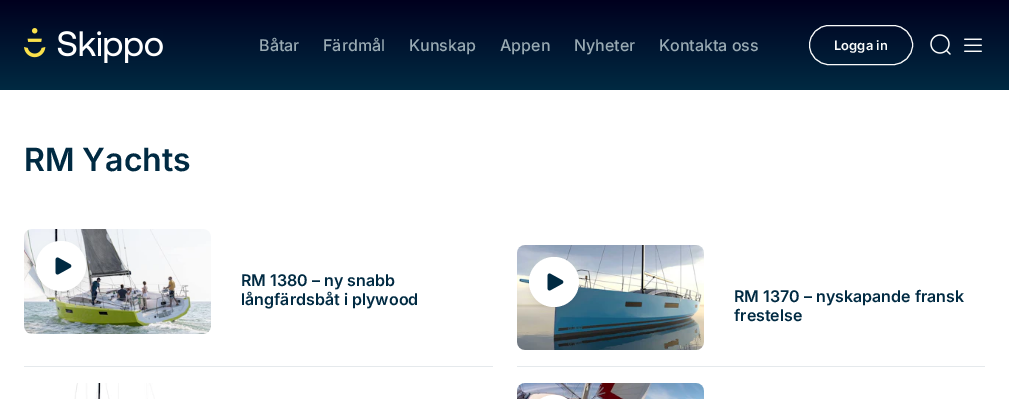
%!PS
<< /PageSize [1009 399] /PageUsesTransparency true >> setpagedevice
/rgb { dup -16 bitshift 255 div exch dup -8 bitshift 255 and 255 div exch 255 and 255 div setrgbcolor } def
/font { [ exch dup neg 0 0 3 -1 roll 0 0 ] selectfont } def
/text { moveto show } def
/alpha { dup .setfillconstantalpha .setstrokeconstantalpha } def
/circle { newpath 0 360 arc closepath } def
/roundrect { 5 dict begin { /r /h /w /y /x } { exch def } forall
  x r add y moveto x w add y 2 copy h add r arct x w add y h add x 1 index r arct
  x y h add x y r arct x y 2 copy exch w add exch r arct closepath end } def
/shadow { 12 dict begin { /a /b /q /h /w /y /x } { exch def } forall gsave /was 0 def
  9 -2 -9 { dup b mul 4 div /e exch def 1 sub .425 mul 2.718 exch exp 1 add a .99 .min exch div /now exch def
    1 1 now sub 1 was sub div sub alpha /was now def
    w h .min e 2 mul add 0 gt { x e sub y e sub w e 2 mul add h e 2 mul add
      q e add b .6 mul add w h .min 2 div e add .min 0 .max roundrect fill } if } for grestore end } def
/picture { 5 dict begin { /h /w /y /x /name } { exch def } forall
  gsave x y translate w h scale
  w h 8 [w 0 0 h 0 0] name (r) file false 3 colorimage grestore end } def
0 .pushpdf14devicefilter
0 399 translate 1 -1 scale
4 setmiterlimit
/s1 { /Inter-Medium 16 font 16#99AAB3 rgb } def
/s2 { /Inter-SemiBold 13 font 16#FAFBFB rgb } def
/s3 { /Inter-SemiBold 32 font 16#002A42 rgb } def
/s4 { /Inter-SemiBold 16 font 16#002A42 rgb } def
16#FFFFFF rgb
0 0 1009 399 rectfill
gsave 0 0 moveto 1009 0 lineto 1009 90 lineto 0 90 lineto closepath clip newpath
<< /ShadingType 2 /ColorSpace /DeviceRGB /Coords [505 90 505 0] /Extend [true true] /Function << /FunctionType 2 /Domain [0 1] /C0 [0 0.165 0.259] /C1 [0 0 0.118] /N 1 >> >> shfill grestore
(pic1.raw) 24 28 139 35 picture
s1
(Båtar) 259 51 text
(Färdmål) 323 51 text
(Kunskap) 409 51 text
(Appen) 500 51 text
(Nyheter) 574 51 text
(Kontakta oss) 659 51 text
16#FAFBFB rgb
809.5 25.5 103 39 19.5 roundrect stroke
s2
(Logga in) 834 50 text
(pic2.raw) 930 34 21 21 picture
(pic3.raw) 964 38 18 14 picture
s3
(RM Yachts) 24 171 text
(pic4.raw) 24 229 187 105 picture
16#000000 rgb
38 247 46 46 23 4 0.1 shadow
16#FFFFFF rgb
61 266 25 circle fill
(pic5.raw) 55 257 17 18 picture
s4
(RM 1380 – ny snabb) 241 286 text
(långfärdsbåt i plywood) 241 305 text
(pic6.raw) 517 245 187 105 picture
16#000000 rgb
531 263 46 46 23 4 0.1 shadow
16#FFFFFF rgb
554 282 25 circle fill
(pic5.raw) 547 273 17 18 picture
s4
(RM 1370 – nyskapande fransk) 734 302 text
(frestelse) 734 321 text
16#E5E9EC rgb
24 366 469 1 rectfill
(pic7.raw) 74 383 81 16 picture
517 366 468 1 rectfill
(pic8.raw) 517 383 187 16 picture
16#FFFFFF rgb
529 395 50 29 25 roundrect fill
.poppdf14devicefilter showpage
